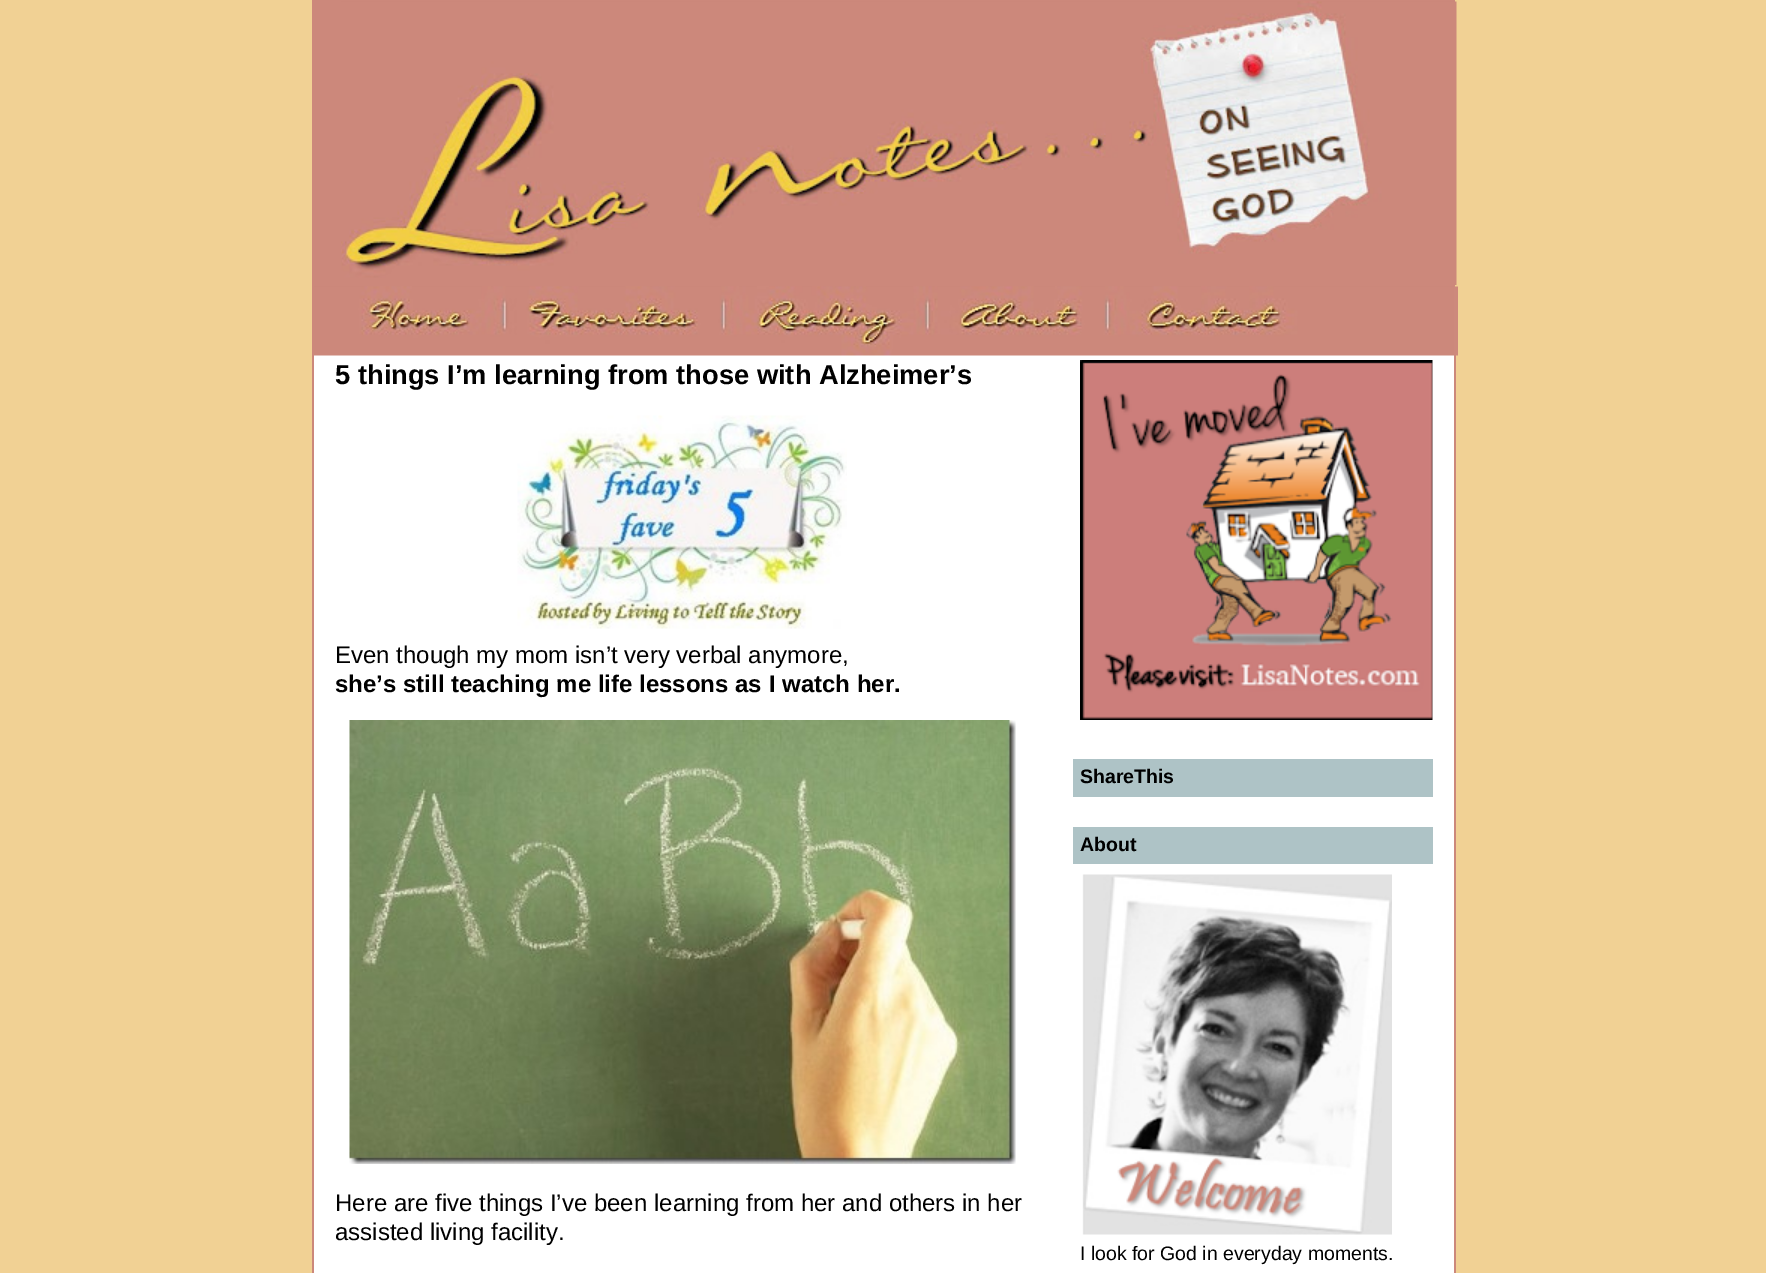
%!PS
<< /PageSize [1766 1273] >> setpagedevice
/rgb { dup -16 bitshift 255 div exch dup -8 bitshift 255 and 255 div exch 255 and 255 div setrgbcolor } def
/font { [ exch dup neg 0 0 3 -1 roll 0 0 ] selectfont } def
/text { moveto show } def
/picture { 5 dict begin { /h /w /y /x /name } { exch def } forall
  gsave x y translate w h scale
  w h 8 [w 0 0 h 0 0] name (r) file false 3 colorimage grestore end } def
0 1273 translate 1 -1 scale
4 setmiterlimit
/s1 { /LiberationSans-Bold 27.3 font 16#000000 rgb } def
/s2 { /LiberationSans-Regular 24 font 16#000000 rgb } def
/s3 { /LiberationSans-Bold 24 font 16#000000 rgb } def
/s4 { /LiberationSans-Bold 19.5 font 16#000000 rgb } def
/s5 { /LiberationSans-Regular 19.5 font 16#000000 rgb } def
16#F1D194 rgb
0 0 1766 1273 rectfill
16#CC887B rgb
312 0 1143 287 rectfill
(pic1.raw) 341 1 1116 284 picture
16#FFFFFF rgb
314 355 1140 918 rectfill
16#CC887B rgb
1454 355 2 918 rectfill
312 287 2 986 rectfill
(pic2.raw) 314 286 1144 70 picture
s1
(5 things I’m learning from those with Alzheimer’s) 335 384 text
(pic3.raw) 517 415 330 214 picture
s2
(Even though my mom isn’t very verbal anymore,) 335 663 text
s3
(she’s still teaching me life lessons as I watch her.) 335 692 text
(pic4.raw) 349 720 667 444 picture
s2
(Here are five things I’ve been learning from her and others in her) 335 1211 text
(assisted living facility.) 335 1240 text
(pic5.raw) 1080 360 353 360 picture
16#AEC3C6 rgb
1073 759 360 38 rectfill
s4
(ShareThis) 1080 783 text
16#AEC3C6 rgb
1073 827 360 37 rectfill
s4
(About) 1080 851 text
(pic6.raw) 1082 874 310 361 picture
s5
(I look for God in everyday moments.) 1080 1260 text
showpage
